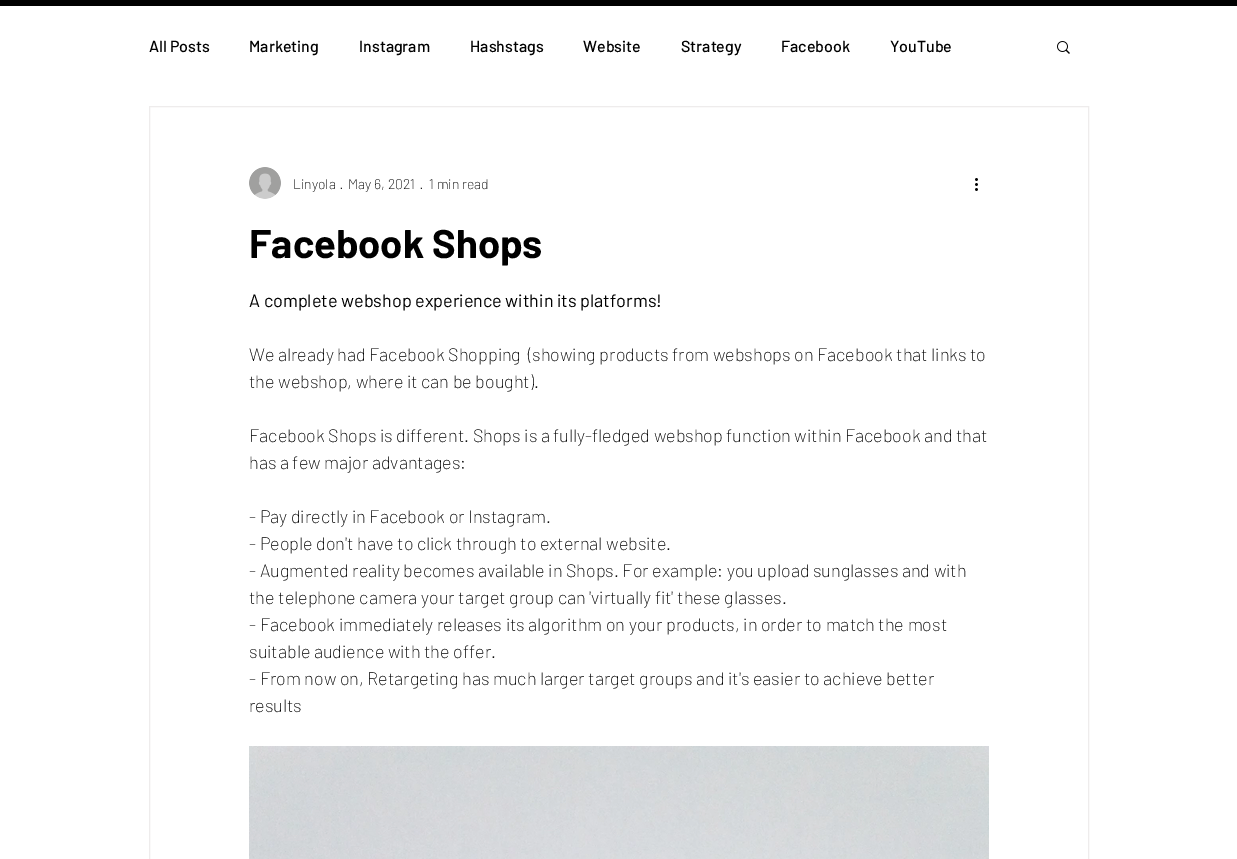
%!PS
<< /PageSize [1237 859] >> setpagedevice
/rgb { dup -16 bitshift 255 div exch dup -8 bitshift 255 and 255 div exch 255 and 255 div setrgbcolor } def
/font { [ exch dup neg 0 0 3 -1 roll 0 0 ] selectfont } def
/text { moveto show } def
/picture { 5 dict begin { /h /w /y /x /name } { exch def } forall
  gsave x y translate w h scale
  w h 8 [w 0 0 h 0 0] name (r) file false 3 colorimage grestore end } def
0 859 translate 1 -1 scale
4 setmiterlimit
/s1 { /Barlow-Medium 16 font 16#000000 rgb } def
/s2 { /Barlow-ExtraLight 14 font 16#000000 rgb } def
/s3 { /Barlow-Bold 40 font 16#000000 rgb } def
/s4 { /Barlow-Regular 18 font 16#000000 rgb } def
/s5 { /Barlow-ExtraLight 18 font 16#000000 rgb } def
16#FFFFFF rgb
0 0 1237 859 rectfill
16#000000 rgb
0 0 1237 6 rectfill
s1
(All Posts) 149 52 text
(Marketing) 249 52 text
(Instagram) 359 52 text
(Hashstags) 470 52 text
(Website) 583 52 text
(Strategy) 681 52 text
(Facebook) 781 52 text
(YouTube) 890 52 text
(pic1.raw) 1057 41 13 13 picture
16#EEECEC rgb
149.5 106.5 939 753 rectstroke
(pic2.raw) 249 167 32 32 picture
s2
(Linyola) 293 189 text
(·) 341 189 text
(May 6, 2021) 348 189 text
(·) 421 189 text
(1 min read) 429 189 text
(pic3.raw) 975 178 3 13 picture
s3
(Facebook Shops) 249 258 text
s4
(A complete webshop experience within its platforms!) 249 307 text
s5
(We already had Facebook Shopping  \(showing products from webshops on Facebook that links to) 249 361 text
(the webshop, where it can be bought\).) 249 388 text
(Facebook Shops is different. Shops is a fully-fledged webshop function within Facebook and that) 249 442 text
(has a few major advantages:) 249 469 text
(- Pay directly in Facebook or Instagram.) 249 523 text
(- People don't have to click through to external website.) 249 550 text
(- Augmented reality becomes available in Shops. For example: you upload sunglasses and with) 249 577 text
(the telephone camera your target group can 'virtually fit' these glasses.) 249 604 text
(- Facebook immediately releases its algorithm on your products, in order to match the most) 249 631 text
(suitable audience with the offer.) 249 658 text
(- From now on, Retargeting has much larger target groups and it's easier to achieve better) 249 685 text
(results) 249 712 text
(pic4.raw) 249 746 740 113 picture
showpage
